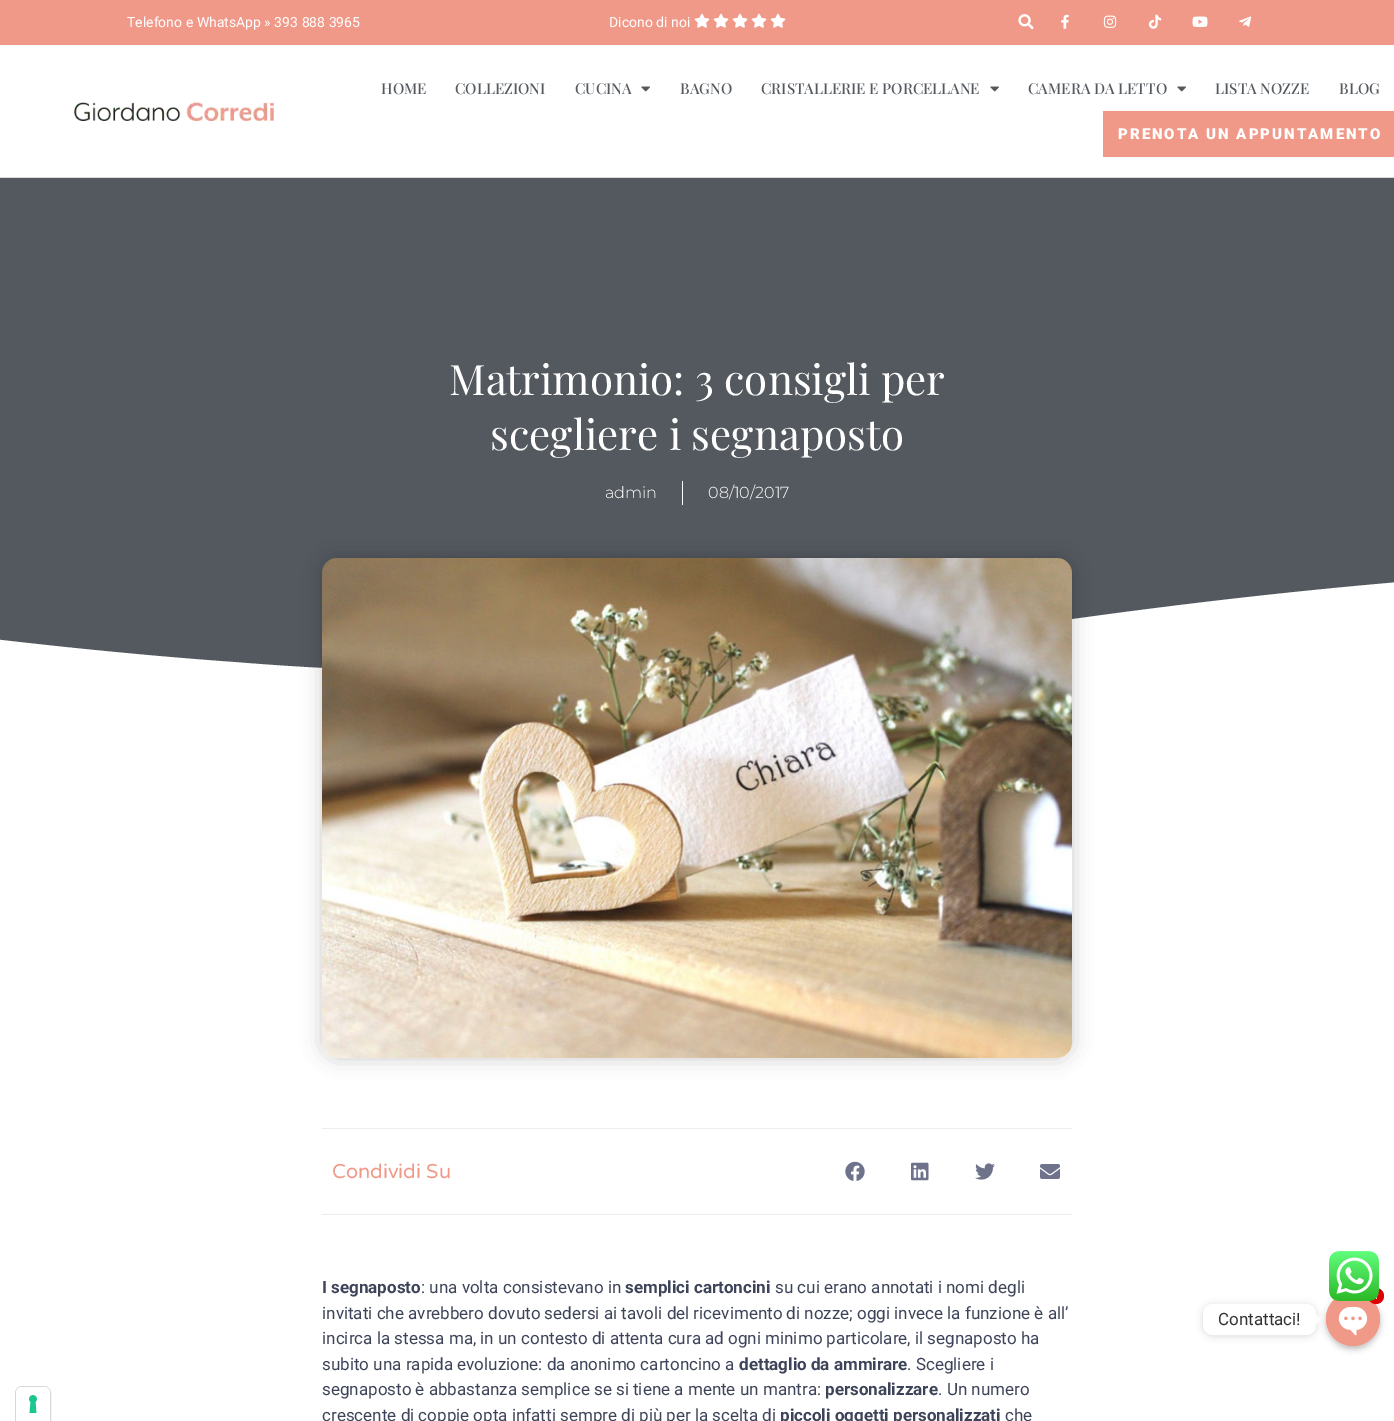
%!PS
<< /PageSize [1394 1421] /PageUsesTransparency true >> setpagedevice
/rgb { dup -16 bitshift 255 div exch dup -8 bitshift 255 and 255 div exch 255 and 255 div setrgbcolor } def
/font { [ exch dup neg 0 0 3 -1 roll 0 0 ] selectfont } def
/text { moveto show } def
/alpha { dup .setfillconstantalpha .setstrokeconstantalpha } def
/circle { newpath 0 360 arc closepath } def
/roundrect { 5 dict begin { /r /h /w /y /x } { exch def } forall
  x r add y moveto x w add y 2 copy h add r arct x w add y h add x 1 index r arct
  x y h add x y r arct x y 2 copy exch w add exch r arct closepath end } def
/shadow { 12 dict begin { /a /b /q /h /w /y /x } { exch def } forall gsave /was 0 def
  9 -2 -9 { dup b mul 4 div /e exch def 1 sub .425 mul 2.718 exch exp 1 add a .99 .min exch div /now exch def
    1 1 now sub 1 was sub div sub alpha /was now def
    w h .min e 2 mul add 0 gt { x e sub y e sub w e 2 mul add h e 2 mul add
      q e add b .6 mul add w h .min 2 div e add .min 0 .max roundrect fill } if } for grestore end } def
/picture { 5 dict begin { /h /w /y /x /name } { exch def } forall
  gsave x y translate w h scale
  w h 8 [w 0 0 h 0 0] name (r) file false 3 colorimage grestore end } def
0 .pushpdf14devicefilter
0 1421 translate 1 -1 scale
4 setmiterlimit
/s1 { /Roboto-Regular 14 font 16#FFFFFF rgb } def
/s2 { /PlayfairDisplay-Medium 15 font 16#54595F rgb } def
/s3 { /PlayfairDisplay-Regular 42 font 16#FFFFFF rgb } def
/s4 { /Montserrat-Light 16 font 16#FFFFFF rgb } def
/s5 { /VarelaRound-Regular 20 font 16#F19989 rgb } def
/s6 { /Roboto-Bold 17 font 16#3D4459 rgb } def
/s7 { /Roboto-Regular 17 font 16#3D4459 rgb } def
/s8 { /Roboto-Regular 17 font 16#333333 rgb } def
16#FFFFFF rgb
0 0 1394 1421 rectfill
16#F19989 rgb
0 0 1394 45 rectfill
s1
(Telefono e WhatsApp » 393 888 3965) 127 27 text
(Dicono di noi) 609 27 text
(pic1.raw) 694 13 16 15 picture
(pic1.raw) 713 13 16 15 picture
(pic1.raw) 732 13 16 15 picture
(pic1.raw) 751 13 16 15 picture
(pic1.raw) 770 13 16 15 picture
(pic2.raw) 1018 14 16 16 picture
(pic3.raw) 1061 14 8 15 picture
(pic4.raw) 1103 15 14 13 picture
(pic5.raw) 1148 14 14 15 picture
(pic6.raw) 1192 16 16 11 picture
(pic7.raw) 1239 16 13 11 picture
16#D8D8D8 rgb
0 177 1394 1 rectfill
(pic8.raw) 74 102 200 19 picture
s2
(HOME) 381 94 text
(COLLEZIONI) 455 94 text
(CUCINA) 575 94 text
(pic9.raw) 641 86 9 6 picture
(BAGNO) 680 94 text
(CRISTALLERIE E PORCELLANE) 761 94 text
(pic9.raw) 990 86 9 6 picture
(CAMERA DA LETTO) 1028 94 text
(pic9.raw) 1177 86 9 6 picture
(LISTA NOZZE) 1215 94 text
(BLOG) 1339 94 text
16#F19989 rgb
1103 111 291 46 rectfill
/Roboto-Black 15 font
16#FFFFFF rgb
1118 139 moveto 2 0 (PRENOTA UN APPUNTAMENTO) ashow
16#54595F rgb
0 178 1394 490 rectfill
s3
(Matrimonio: 3 consigli per) 449 395 text
(scegliere i segnaposto) 490 450 text
s4
(admin) 605 498 text
682 481 1 24 rectfill
(08/10/2017) 708 498 text
414 671 moveto 496 674 601 671 688 665 curveto 773 659 945 637 1052 622 curveto 1327 583 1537 569 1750 562 curveto 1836 560 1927 558 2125 565 curveto 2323 573 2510 596 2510 596 curveto 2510 679 lineto -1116 679 lineto -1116 643 lineto -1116 643 -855 604 -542 606 curveto -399 607 -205 614 -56 633 curveto 21 643 134 655 233 662 curveto 332 670 376 670 414 671 curveto closepath fill
16#000000 rgb
322 558 750 500 15 10 0.2 shadow
(pic10.raw) 322 558 750 500 picture
16#ECEDEF rgb
322 1128 750 1 rectfill
322 1214 750 1 rectfill
s5
(Condividi Su) 332 1178 text
(pic11.raw) 845 1161 20 20 picture
(pic12.raw) 911 1162 18 19 picture
(pic13.raw) 975 1163 20 17 picture
(pic14.raw) 1040 1164 20 15 picture
s6
(I segnaposto) 322 1293 text
s7
(: una volta consistevano in) 421 1293 text
s6
(semplici cartoncini) 625 1293 text
s7
(su cui erano annotati i nomi degli) 775 1293 text
(invitati che avrebbero dovuto sedersi ai tavoli del ricevimento di nozze; oggi invece la funzione è all’) 322 1319 text
(incirca la stessa ma, in un contesto di attenta cura ad ogni minimo particolare, il segnaposto ha) 322 1344 text
(subito una rapida evoluzione: da anonimo cartoncino a) 322 1370 text
s6
(dettaglio da ammirare) 739 1370 text
s7
(. Scegliere i) 907 1370 text
(segnaposto è abbastanza semplice se si tiene a mente un mantra:) 322 1395 text
s6
(personalizzare) 825 1395 text
s7
(. Un numero) 938 1395 text
(crescente di coppie opta infatti sempre di più per la scelta di) 322 1421 text
s6
(piccoli oggetti personalizzati) 780 1421 text
s7
(che) 1005 1421 text
16#000000 rgb
1203 1305 113 31 10 4 0.15 shadow
16#FFFFFF rgb
1316 1324.5 moveto 1316 1314.5 lineto 1321 1319.5 lineto closepath fill
16#000000 rgb
1326 1295 54 54 27 3 0.25 shadow
(pic16.raw) 1326 1299 54 47 picture
16#DD0000 rgb
1376 1296 8 circle fill
(pic15.raw) 1329 1251 50 50 picture
16#FFFFFF rgb
1203 1304 113 31 10 roundrect fill
s8
(Contattaci!) 1218 1325 text
16#D9D9D9 rgb
22 1386.5 moveto 44 1386.5 lineto 47.5 1386.5 50.5 1389.5 50.5 1393 curveto 50.5 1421.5 lineto 15.5 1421.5 lineto 15.5 1393 lineto 15.5 1389.5 18.5 1386.5 22 1386.5 curveto closepath stroke
16#FFFFFF rgb
22 1387 moveto 44 1387 lineto 47.5 1387 50 1389.5 50 1393 curveto 50 1421 lineto 16 1421 lineto 16 1393 lineto 16 1389.5 18.5 1387 22 1387 curveto closepath fill
(pic17.raw) 29 1395 8 18 picture
.poppdf14devicefilter showpage
